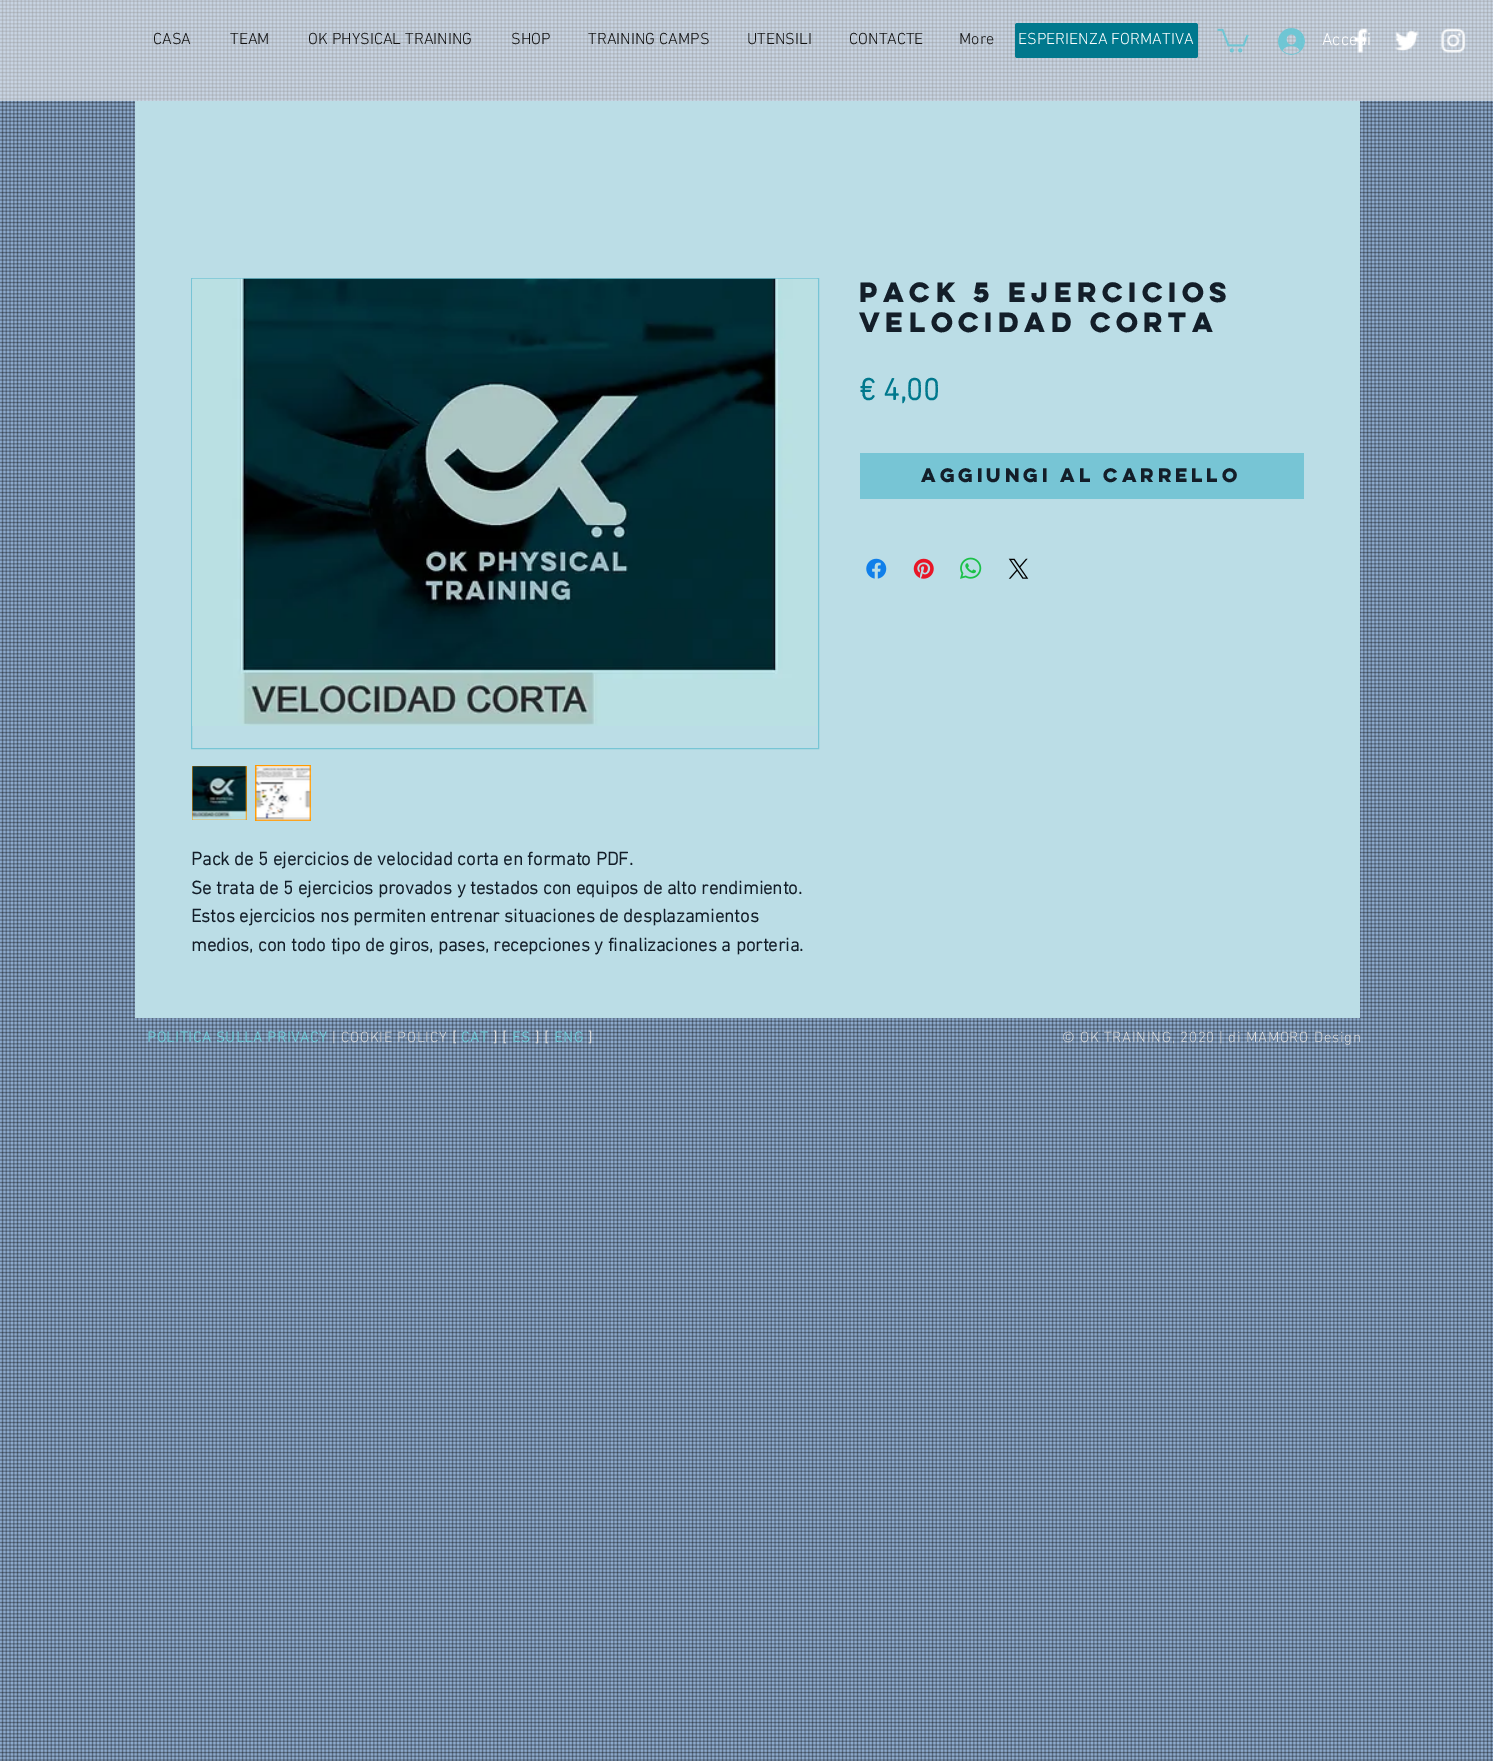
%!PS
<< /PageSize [1493 1761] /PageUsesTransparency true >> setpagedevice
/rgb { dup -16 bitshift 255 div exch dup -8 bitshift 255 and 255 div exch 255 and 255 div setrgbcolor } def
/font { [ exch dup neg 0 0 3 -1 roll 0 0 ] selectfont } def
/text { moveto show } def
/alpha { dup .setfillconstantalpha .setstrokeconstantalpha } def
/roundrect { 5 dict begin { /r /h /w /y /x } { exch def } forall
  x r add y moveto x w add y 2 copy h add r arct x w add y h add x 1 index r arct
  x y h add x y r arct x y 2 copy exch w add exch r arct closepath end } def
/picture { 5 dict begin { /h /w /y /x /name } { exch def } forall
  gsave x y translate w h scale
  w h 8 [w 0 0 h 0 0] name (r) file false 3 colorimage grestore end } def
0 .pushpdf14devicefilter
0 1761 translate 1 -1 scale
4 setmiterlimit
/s1 { /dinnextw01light-Light 16.25 font 16#111111 rgb } def
/s2 { /dinnextw01light-Light 16.25 font 16#FFFFFF rgb } def
/s3 { /dinnextw01light-Light 17.5 font 16#FFFFFF rgb } def
/s4 { /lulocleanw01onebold-Bold 25 font 16#131E29 rgb } def
/s5 { /dinnextw01light-Bold 31 font 16#00788D rgb } def
/s6 { /lulocleanw01onebold-Bold 17.5 font 16#131E29 rgb } def
/s7 { /dinnextw01light-Bold 18.75 font 16#131E29 rgb } def
16#8DAACD rgb
0 0 1493 1761 rectfill
(pic1.raw) 0 0 1493 1761 picture
0.59 alpha
16#F2F2F2 rgb
0 0 1493 101 rectfill
1 alpha
s1
(CASA) 153 44 text
(TEAM) 230 44 text
(OK PHYSICAL TRAINING) 308 44 text
(SHOP) 511 44 text
(TRAINING CAMPS) 588 44 text
(UTENSILI) 747 44 text
(CONTACTE) 849 44 text
(More) 959 44 text
16#00788D rgb
1015 23 183 35 2.5 roundrect fill
s2
(ESPERIENZA FORMATIVA) 1018 44 text
(pic2.raw) 1217 28 32 25 picture
(pic3.raw) 1278 28 27 27 picture
s3
(Accedi) 1322 45 text
(pic4.raw) 1353 28 15 25 picture
(pic5.raw) 1395 30 24 21 picture
(pic6.raw) 1441 28 25 25 picture
16#BBDDE6 rgb
135 101 1225 917 rectfill
s4
(Pack 5 ejercicios) 859 302 text
(Velocidad Corta) 859 332 text
s5
(€ 4,00) 859 400 text
16#77C5D5 rgb
860 453 444 46 rectfill
s6
(Aggiungi al carrello) 921 482 text
(pic7.raw) 866 558 21 21 picture
(pic8.raw) 913 558 21 21 picture
(pic9.raw) 960 557 22 22 picture
(pic10.raw) 1008 558 21 21 picture
16#77C5D5 rgb
191.5 278.5 627 470 rectstroke
(pic11.raw) 192 278 626 448 picture
16#FF9900 rgb
192 766 55 54 rectfill
(pic12.raw) 192 766 55 54 picture
255 765 56 56 rectfill
(pic13.raw) 255 766 56 55 picture
s7
(Pack de 5 ejercicios de velocidad corta en formato PDF.) 191 865 text
(Se trata de 5 ejercicios provados y testados con equipos de alto rendimiento.) 191 894 text
(Estos ejercicios nos permiten entrenar situaciones de desplazamientos) 191 922 text
(medios, con todo tipo de giros, pases, recepciones y finalizaciones a porteria.) 191 951 text
/dinnextw01light-Bold 15 font
16#6FC6D4 rgb
147 1042 moveto 0.75 0 (POLITICA SULLA PRIVACY) ashow
/dinnextw01light-Light 15 font
16#DBDBDB rgb
332 1042 moveto 0.75 0 (| COOKIE POLICY) ashow
/dinnextw01light-Bold 15 font
452 1042 moveto 0.75 0 ([) ashow
16#6FC6D4 rgb
461 1042 moveto 0.75 0 (CAT) ashow
16#DBDBDB rgb
493 1042 moveto 0.75 0 (] [) ashow
16#6FC6D4 rgb
512 1042 moveto 0.75 0 (ES) ashow
16#DBDBDB rgb
535 1042 moveto 0.75 0 (] [) ashow
16#6FC6D4 rgb
554 1042 moveto 0.75 0 (ENG) ashow
16#DBDBDB rgb
588 1042 moveto 0.75 0 (]) ashow
/dinnextw01light-Light 15 font
1062 1042 moveto 0.75 0 (© OK TRAINING, 2020 | di MAMORO Design) ashow
.poppdf14devicefilter showpage
